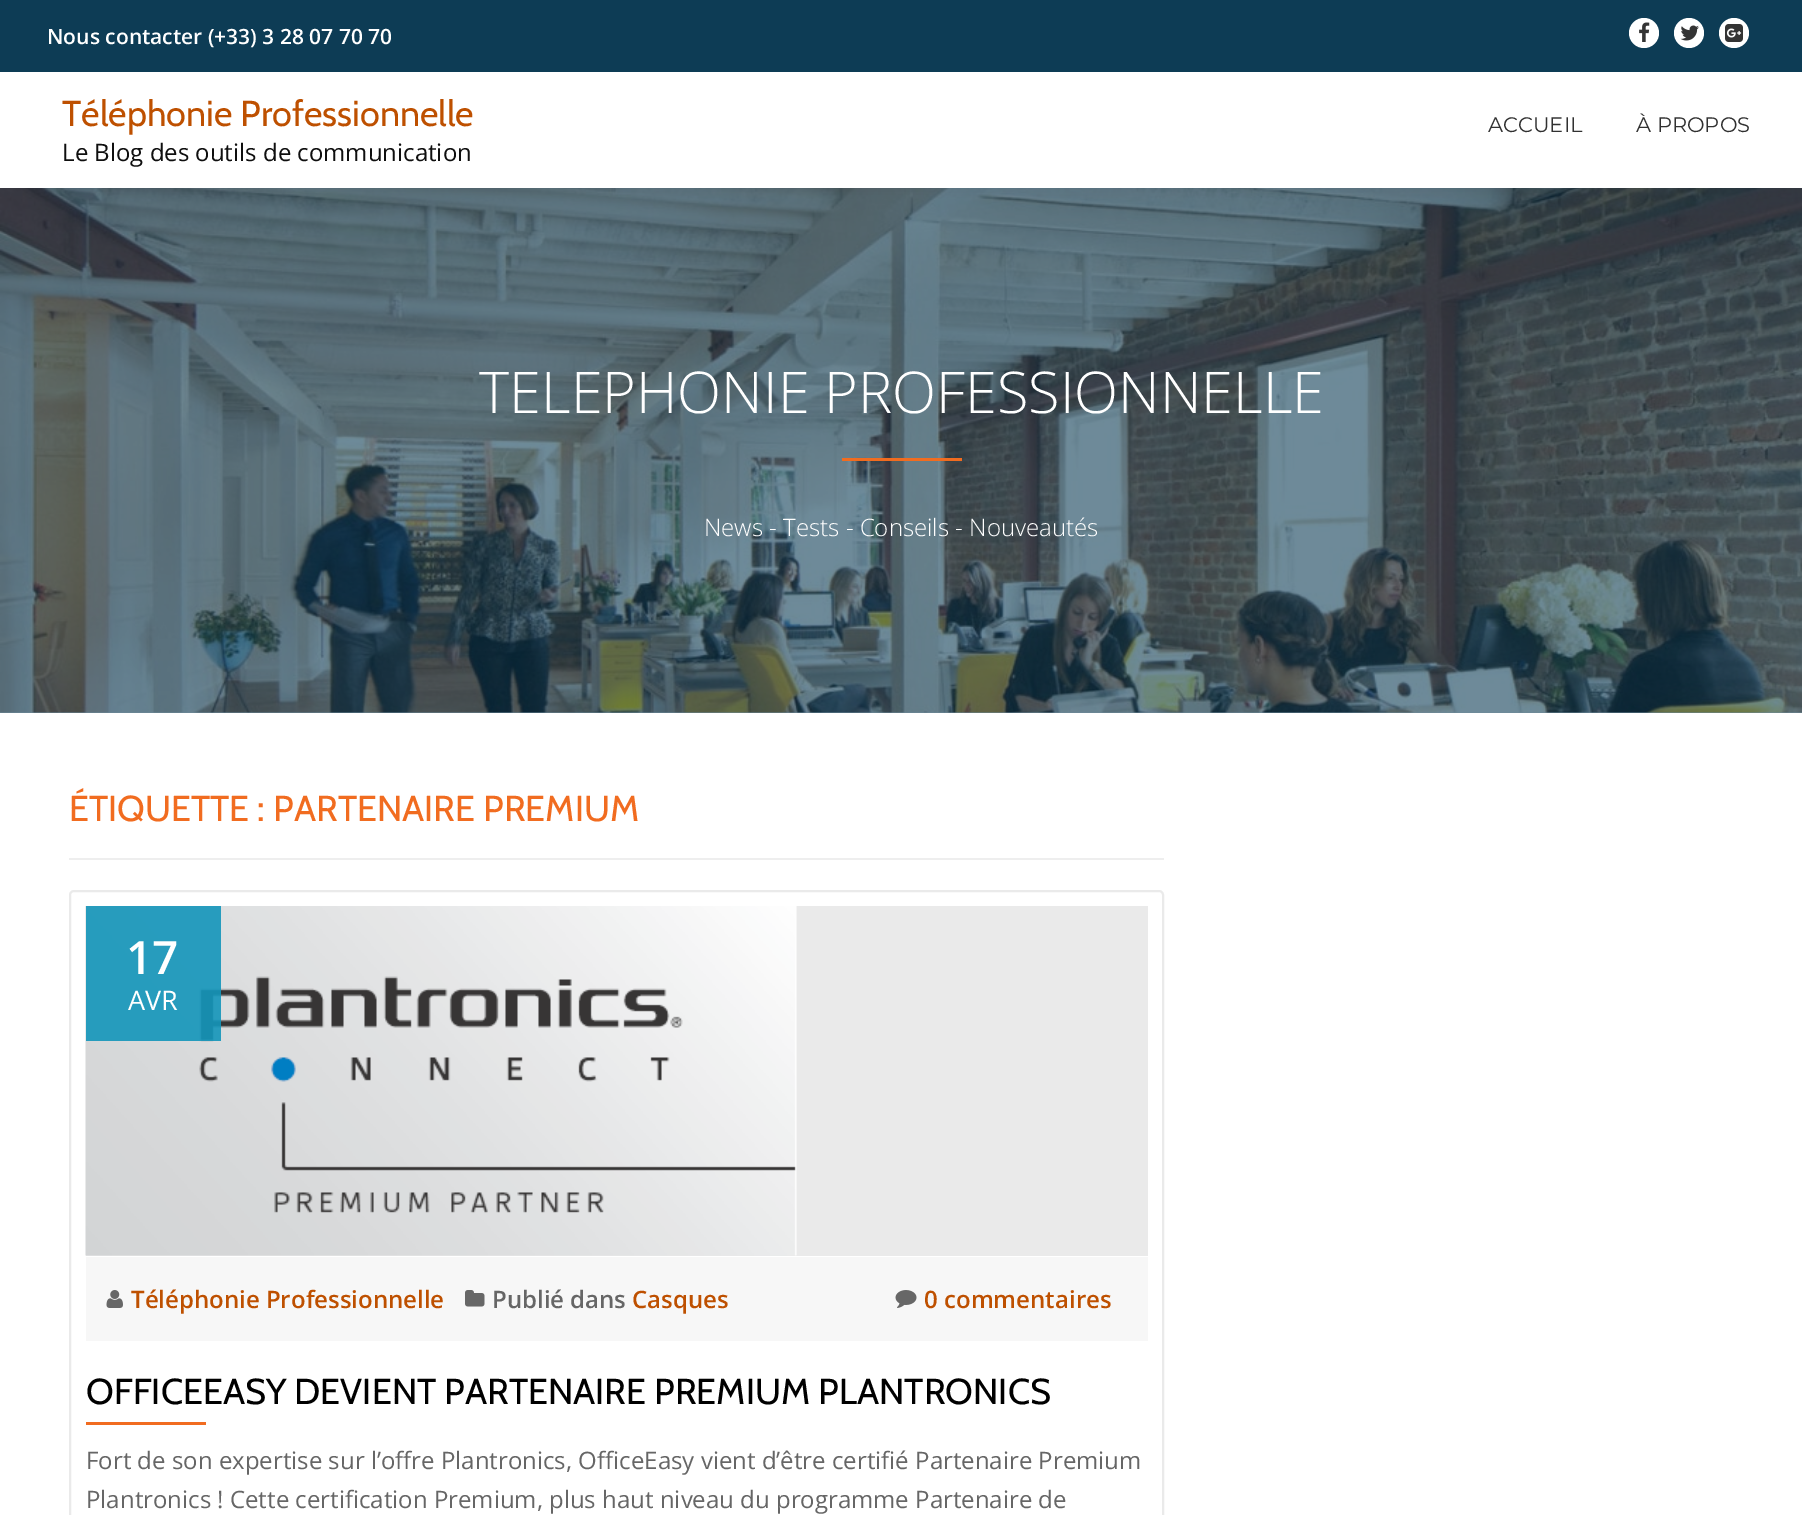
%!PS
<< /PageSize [1802 1515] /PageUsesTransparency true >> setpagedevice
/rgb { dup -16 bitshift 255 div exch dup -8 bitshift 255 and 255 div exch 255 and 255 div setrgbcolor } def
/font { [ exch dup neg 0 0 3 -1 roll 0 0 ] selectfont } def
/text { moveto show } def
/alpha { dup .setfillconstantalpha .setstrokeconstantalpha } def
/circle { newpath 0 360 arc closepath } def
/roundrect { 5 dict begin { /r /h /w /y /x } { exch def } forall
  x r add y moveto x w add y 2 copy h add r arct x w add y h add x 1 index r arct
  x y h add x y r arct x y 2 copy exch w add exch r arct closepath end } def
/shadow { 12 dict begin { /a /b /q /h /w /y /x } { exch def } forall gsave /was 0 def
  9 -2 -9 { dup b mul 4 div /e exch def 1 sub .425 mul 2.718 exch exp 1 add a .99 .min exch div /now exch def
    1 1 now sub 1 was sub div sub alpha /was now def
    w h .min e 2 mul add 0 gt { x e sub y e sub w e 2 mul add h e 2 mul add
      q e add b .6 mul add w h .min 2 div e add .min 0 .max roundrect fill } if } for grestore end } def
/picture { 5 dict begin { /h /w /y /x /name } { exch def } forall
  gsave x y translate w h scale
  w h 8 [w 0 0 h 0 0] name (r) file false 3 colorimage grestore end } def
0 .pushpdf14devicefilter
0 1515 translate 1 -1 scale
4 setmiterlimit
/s1 { /OpenSans-SemiBold 21 font 16#FFFFFF rgb } def
/s2 { /Cabin-Regular 36 font 16#BE5000 rgb } def
/s3 { /OpenSans-Regular 24 font 16#0F0F0F rgb } def
/s4 { /Montserrat-Regular 21 font 16#313131 rgb } def
/s5 { /OpenSans-Light 57.6 font 16#FFFFFF rgb } def
/s6 { /OpenSans-Light 24 font 16#FFFFFF rgb } def
/s7 { /Cabin-Regular 36 font 16#F16C20 rgb } def
/s8 { /OpenSans-SemiBold 46 font 16#FFFFFF rgb } def
/s9 { /OpenSans-Regular 27 font 16#FFFFFF rgb } def
/s10 { /OpenSans-SemiBold 24 font 16#BE5000 rgb } def
/s11 { /OpenSans-SemiBold 24 font 16#666666 rgb } def
/s12 { /Cabin-Regular 36 font 16#000000 rgb } def
/s13 { /OpenSans-Regular 24 font 16#666666 rgb } def
16#FFFFFF rgb
0 0 1802 1515 rectfill
16#6E8A99 rgb
0 712 1802 1 rectfill
(pic4.raw) 0 188 1802 525 picture
16#323232 rgb
0 3 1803 188 0 6 0.08 shadow
16#FFFFFF rgb
0 72 1802 116 rectfill
16#0D3C55 rgb
0 0 1802 72 rectfill
s1
(Nous contacter \(+33\) 3 28 07 70 70) 47 44 text
1644 33 15 circle fill
(pic1.raw) 1639 22 11 20 picture
1689 33 15 circle fill
(pic2.raw) 1680 25 19 16 picture
1734 33 15 circle fill
(pic3.raw) 1725 24 18 18 picture
s2
(Téléphonie Professionnelle) 62 126 text
s3
(Le Blog des outils de communication) 62 161 text
s4
(ACCUEIL) 1488 132 text
(À PROPOS) 1636 132 text
s5
(TELEPHONIE PROFESSIONNELLE) 479 413 text
16#F16C20 rgb
842 458 120 3 rectfill
s6
(News - Tests - Conseils - Nouveautés) 704 536 text
16#EEEEEE rgb
69 858 1095 2 rectfill
s7
(ÉTIQUETTE : PARTENAIRE PREMIUM) 69 821 text
16#EAEAEA rgb
2 setlinewidth
70 891 1093 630 4 roundrect stroke
86 906 1062 350 rectfill
(pic5.raw) 85 906 712 350 picture
0.9 alpha
16#1395BA rgb
86 906 135 135 rectfill
1 alpha
s8
(17) 126 974 text
s9
(AVR) 128 1010 text
16#F7F7F7 rgb
86 1257 1062 84 rectfill
(pic6.raw) 106 1290 17 18 picture
s10
(Téléphonie Professionnelle) 131 1308 text
(pic7.raw) 465 1290 20 17 picture
s11
(Publié dans) 492 1308 text
s10
(Casques) 632 1308 text
(pic8.raw) 895 1290 22 18 picture
(0 commentaires) 924 1308 text
s12
(OFFICEEASY DEVIENT PARTENAIRE PREMIUM PLANTRONICS) 86 1404 text
16#F16C20 rgb
86 1422 120 3 rectfill
s13
(Fort de son expertise sur l’offre Plantronics, OfficeEasy vient d’être certifié Partenaire Premium) 86 1469 text
(Plantronics ! Cette certification Premium, plus haut niveau du programme Partenaire de) 86 1508 text
.poppdf14devicefilter showpage
